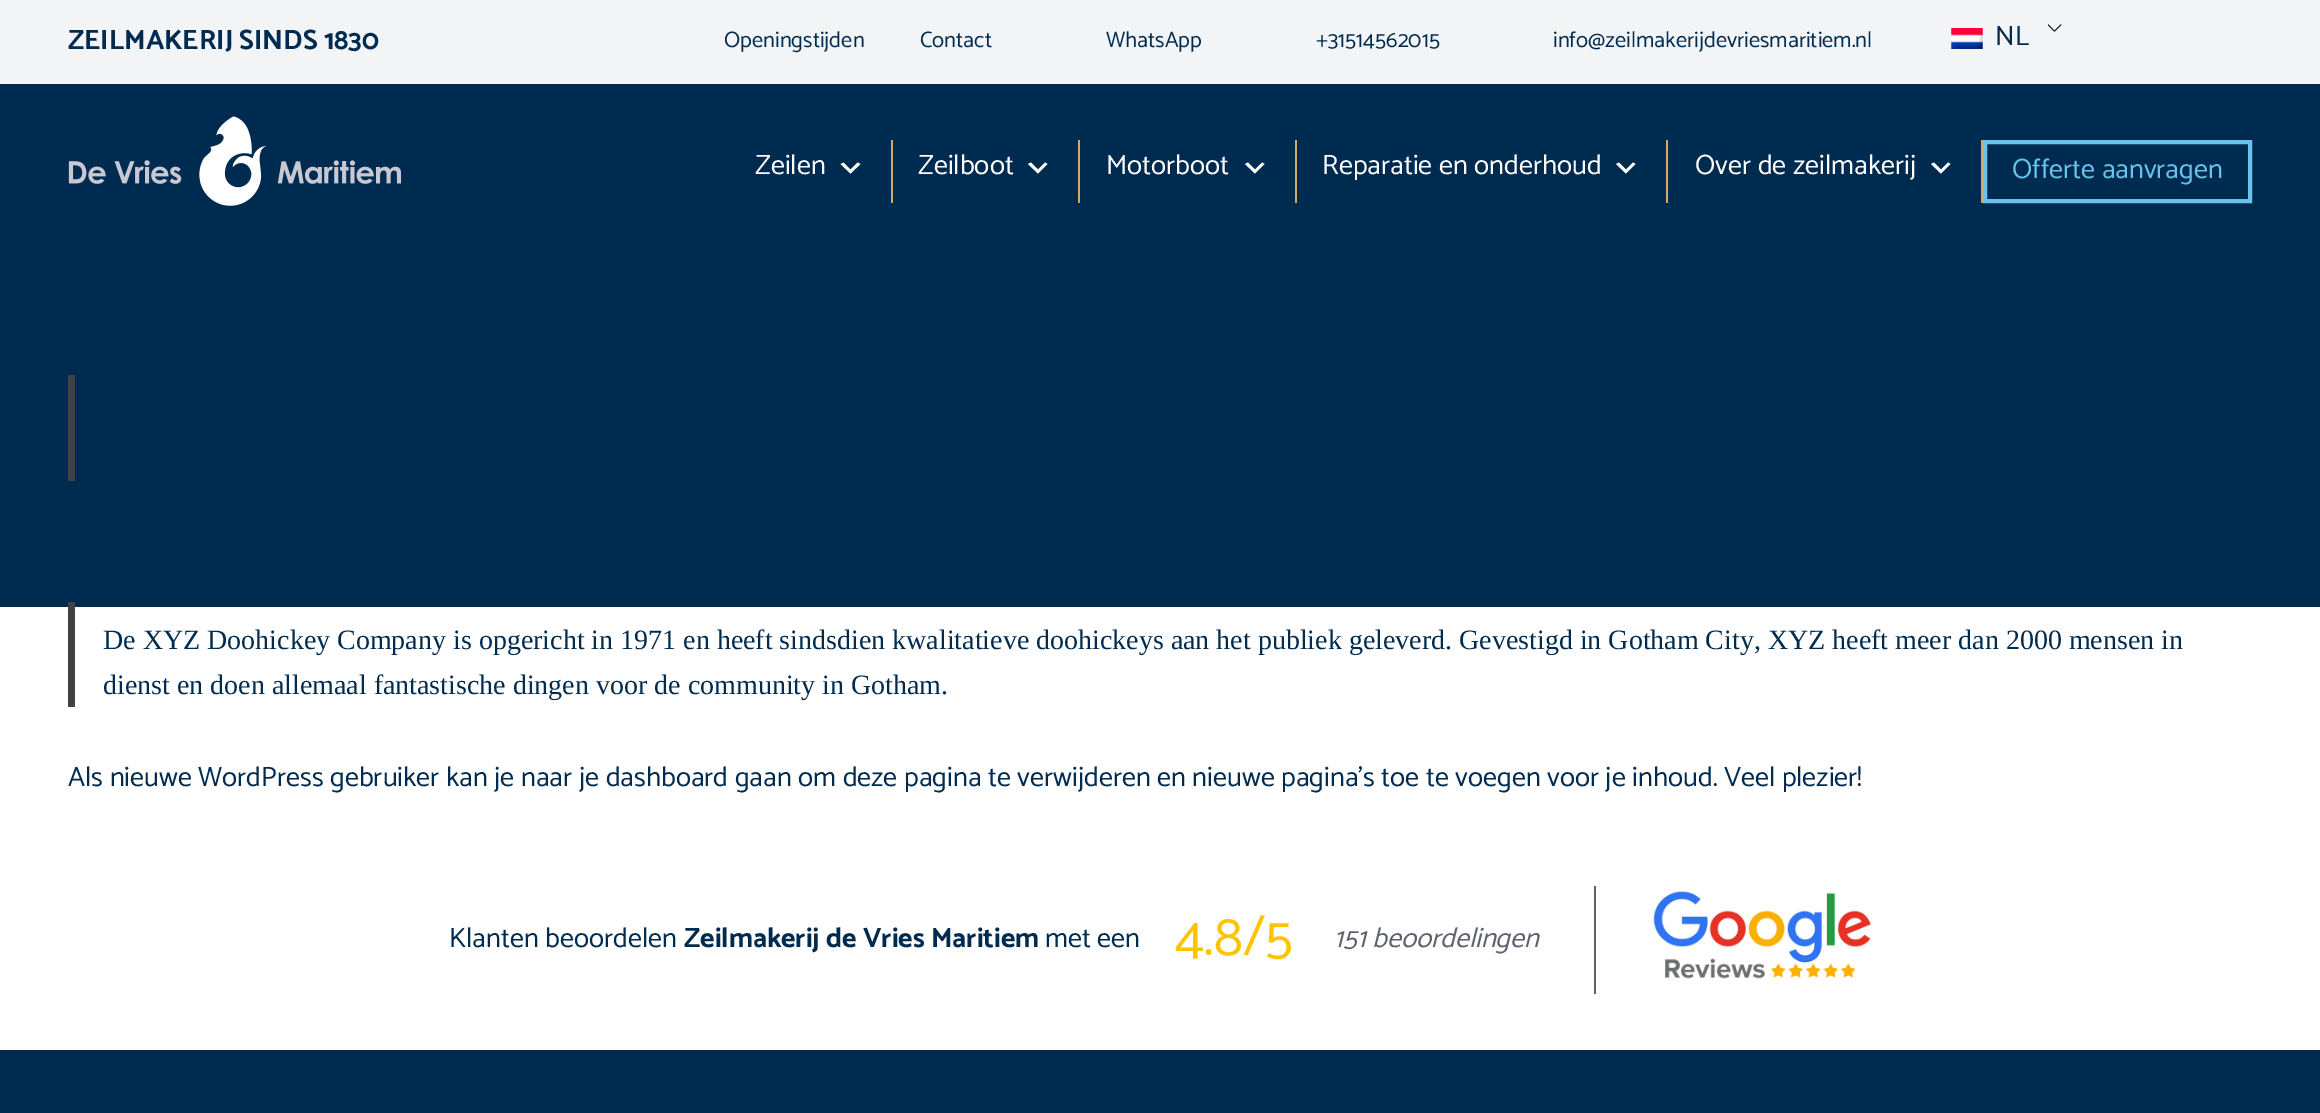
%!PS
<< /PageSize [2320 1113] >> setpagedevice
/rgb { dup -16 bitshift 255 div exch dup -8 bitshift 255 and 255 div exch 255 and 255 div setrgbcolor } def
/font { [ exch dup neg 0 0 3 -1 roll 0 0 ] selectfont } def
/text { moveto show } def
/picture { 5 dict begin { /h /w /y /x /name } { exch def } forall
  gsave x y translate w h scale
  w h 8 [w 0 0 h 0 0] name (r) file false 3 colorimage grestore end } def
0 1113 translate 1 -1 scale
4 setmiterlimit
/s1 { /Catamaran-Bold 28 font 16#002B50 rgb } def
/s2 { /Catamaran-Regular 22.4 font 16#002B50 rgb } def
/s3 { /Catamaran-Regular 28 font 16#002B50 rgb } def
/s4 { /Catamaran-Regular 28 font 16#FFFFFF rgb } def
/s5 { /Catamaran-Regular 28 font 16#68C4ED rgb } def
/s6 { /LiberationSerif-Regular 28 font 16#002B50 rgb } def
/s7 { /Catamaran-Regular 56 font 16#FEC400 rgb } def
/s8 { /Catamaran-Italic 28 font 16#5E626E rgb } def
16#FFFFFF rgb
0 0 2320 1113 rectfill
16#F3F4F6 rgb
0 0 2320 84 rectfill
s1
(ZEILMAKERIJ SINDS 1830) 68 49 text
s2
(Openingstijden) 724 47 text
(Contact) 920 47 text
(WhatsApp) 1106 47 text
(+31514562015) 1316 47 text
(info@zeilmakerijdevriesmaritiem.nl) 1553 47 text
(pic1.raw) 2048 24 14 8 picture
(pic2.raw) 1951 28 32 21 picture
s3
(NL) 1995 45 text
0 84 2320 523 rectfill
(pic3.raw) 68 116 334 90 picture
s4
(Zeilen) 755 174 text
843.5 162.5 moveto 850.5 169.5 lineto 857.5 162.5 lineto 860.5 164 lineto 850.5 173.5 lineto 840.5 164 lineto closepath fill
16#CFAA68 rgb
891 140 2 63 rectfill
s4
(Zeilboot) 918 174 text
1031 162.5 moveto 1038 169.5 lineto 1045 162.5 lineto 1047.5 164 lineto 1038 173.5 lineto 1028 164 lineto closepath fill
16#CFAA68 rgb
1078 140 2 63 rectfill
s4
(Motorboot) 1106 174 text
1248 162.5 moveto 1255 169.5 lineto 1262 162.5 lineto 1264.5 164 lineto 1255 173.5 lineto 1245 164 lineto closepath fill
16#CFAA68 rgb
1295 140 2 63 rectfill
s4
(Reparatie en onderhoud) 1322 174 text
1619 162.5 moveto 1626 169.5 lineto 1633 162.5 lineto 1635.5 164 lineto 1626 173.5 lineto 1616 164 lineto closepath fill
16#CFAA68 rgb
1666 140 2 63 rectfill
s4
(Over de zeilmakerij) 1695 174 text
1934 162.5 moveto 1941 169.5 lineto 1948 162.5 lineto 1950.5 164 lineto 1941 173.5 lineto 1931 164 lineto closepath fill
16#CFAA68 rgb
1981 140 2 63 rectfill
16#68C4ED rgb
4 setlinewidth
1985 142 265 59 rectstroke
(Offerte aanvragen) 2012 178 text
16#424242 rgb
68 375 7 106 rectfill
68 602 7 105 rectfill
s6
(De XYZ Doohickey Company is opgericht in 1971 en heeft sindsdien kwalitatieve doohickeys aan het publiek geleverd. Gevestigd in Gotham City, XYZ heeft meer dan 2000 mensen in) 103 649 text
(dienst en doen allemaal fantastische dingen voor de community in Gotham.) 103 694 text
s3
(Als nieuwe WordPress gebruiker kan je naar je dashboard gaan om deze pagina te verwijderen en nieuwe pagina’s toe te voegen voor je inhoud. Veel plezier!) 68 786 text
(Klanten beoordelen) 449 947 text
s1
(Zeilmakerij de Vries Maritiem) 684 947 text
s3
(met een) 1045 947 text
s7
(4.8/5) 1175 955 text
s8
(151 beoordelingen) 1334 947 text
1594 886 2 108 rectfill
(pic4.raw) 1653 891 218 88 picture
16#002B50 rgb
0 1050 2320 63 rectfill
showpage
